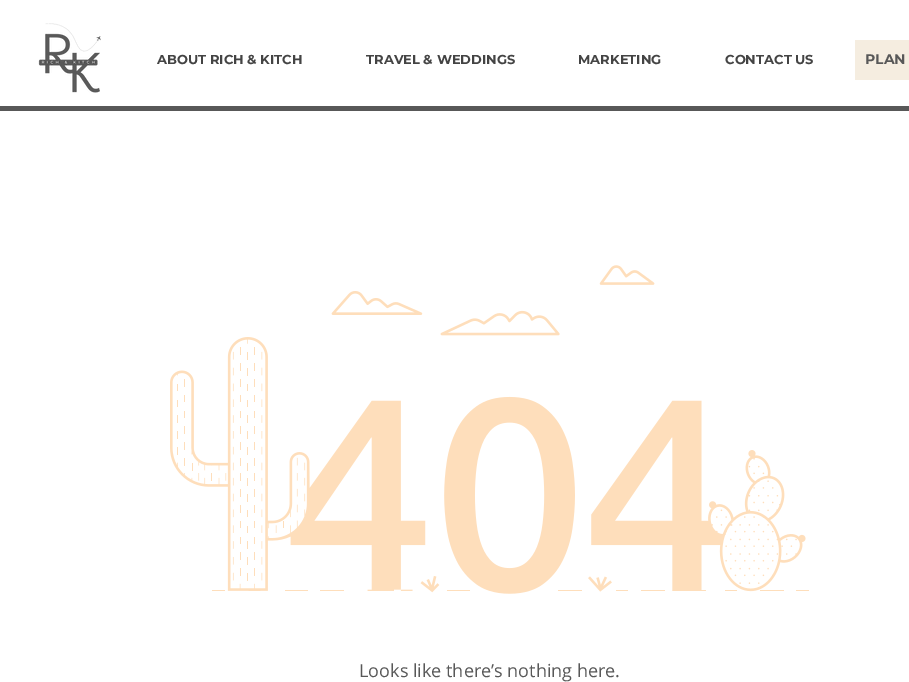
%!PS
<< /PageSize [909 682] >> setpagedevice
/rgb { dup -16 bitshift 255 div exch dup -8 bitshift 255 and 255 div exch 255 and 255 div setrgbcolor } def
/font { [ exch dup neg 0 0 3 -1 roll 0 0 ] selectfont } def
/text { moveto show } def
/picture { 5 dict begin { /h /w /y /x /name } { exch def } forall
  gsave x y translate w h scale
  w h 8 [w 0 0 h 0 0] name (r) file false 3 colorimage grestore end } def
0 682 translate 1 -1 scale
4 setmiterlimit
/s1 { /Montserrat-Bold 13 font 16#444444 rgb } def
/s2 { /Montserrat-Bold 14 font 16#585858 rgb } def
/s3 { /OpenSans-Regular 18 font 16#585858 rgb } def
16#FFFFFF rgb
0 0 909 682 rectfill
(pic1.raw) 38 23 63 70 picture
s1
(ABOUT RICH & KITCH) 157 64 text
(TRAVEL & WEDDINGS) 366 64 text
(MARKETING) 578 64 text
(CONTACT US) 725 64 text
16#F5EDE0 rgb
855 40 54 40 rectfill
s2
(PLAN) 865 64 text
0 106 909 5 rectfill
(pic2.raw) 170 265 639 329 picture
s3
(Looks like there’s nothing here.) 359 677 text
showpage
